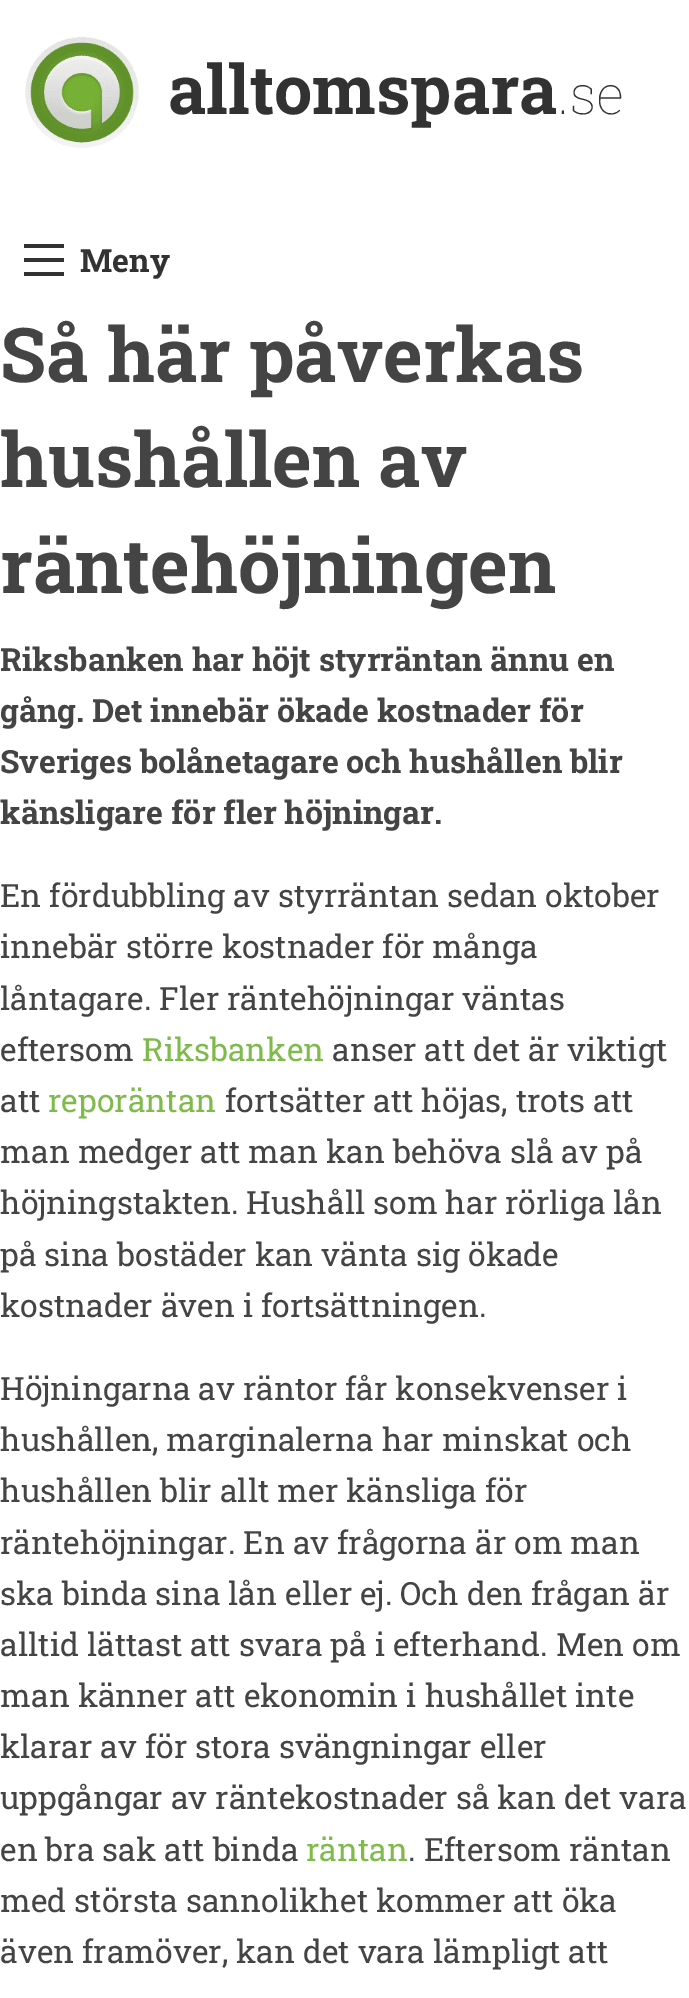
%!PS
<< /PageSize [689 1998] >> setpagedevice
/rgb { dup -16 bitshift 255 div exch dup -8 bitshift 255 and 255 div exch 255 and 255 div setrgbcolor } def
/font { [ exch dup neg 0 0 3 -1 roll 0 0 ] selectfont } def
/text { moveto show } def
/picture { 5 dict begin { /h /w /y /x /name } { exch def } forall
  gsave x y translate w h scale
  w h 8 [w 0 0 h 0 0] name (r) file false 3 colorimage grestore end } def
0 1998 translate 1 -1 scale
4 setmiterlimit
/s1 { /RobotoSlab-Bold 68 font 16#323232 rgb } def
/s2 { /RobotoSlab-Thin 54 font 16#323232 rgb } def
/s3 { /RobotoSlab-Bold 32 font 16#323232 rgb } def
/s4 { /RobotoSlab-Bold 75.5 font 16#454444 rgb } def
/s5 { /RobotoSlab-Bold 32 font 16#454444 rgb } def
/s6 { /RobotoSlab-Regular 32 font 16#454444 rgb } def
/s7 { /RobotoSlab-Regular 32 font 16#7FBB4A rgb } def
16#FFFFFF rgb
0 0 689 1998 rectfill
(pic1.raw) 25 37 114 111 picture
s1
(alltomspara) 168 114 text
s2
(.se) 558 114 text
24 272 40 4 rectfill
24 258 40 4 rectfill
24 244 40 4 rectfill
s3
(Meny) 80 272 text
s4
(Så här påverkas) 0 382 text
(hushållen av) 0 487 text
(räntehöjningen) 0 593 text
s5
(Riksbanken har höjt styrräntan ännu en) 0 671 text
(gång. Det innebär ökade kostnader för) 0 722 text
(Sveriges bolånetagare och hushållen blir) 0 773 text
(känsligare för fler höjningar.) 0 824 text
s6
(En fördubbling av styrräntan sedan oktober) 0 907 text
(innebär större kostnader för många) 0 958 text
(låntagare. Fler räntehöjningar väntas) 0 1010 text
(eftersom) 0 1061 text
s7
(Riksbanken) 142 1061 text
s6
(anser att det är viktigt) 332 1061 text
(att) 0 1112 text
s7
(reporäntan) 48 1112 text
s6
(fortsätter att höjas, trots att) 225 1112 text
(man medger att man kan behöva slå av på) 0 1163 text
(höjningstakten. Hushåll som har rörliga lån) 0 1214 text
(på sina bostäder kan vänta sig ökade) 0 1266 text
(kostnader även i fortsättningen.) 0 1317 text
(Höjningarna av räntor får konsekvenser i) 0 1400 text
(hushållen, marginalerna har minskat och) 0 1451 text
(hushållen blir allt mer känsliga för) 0 1502 text
(räntehöjningar. En av frågorna är om man) 0 1554 text
(ska binda sina lån eller ej. Och den frågan är) 0 1605 text
(alltid lättast att svara på i efterhand. Men om) 0 1656 text
(man känner att ekonomin i hushållet inte) 0 1707 text
(klarar av för stora svängningar eller) 0 1758 text
(uppgångar av räntekostnader så kan det vara) 0 1809 text
(en bra sak att binda) 0 1861 text
s7
(räntan) 306 1861 text
s6
(. Eftersom räntan) 408 1861 text
(med största sannolikhet kommer att öka) 0 1912 text
(även framöver, kan det vara lämpligt att) 0 1963 text
showpage
